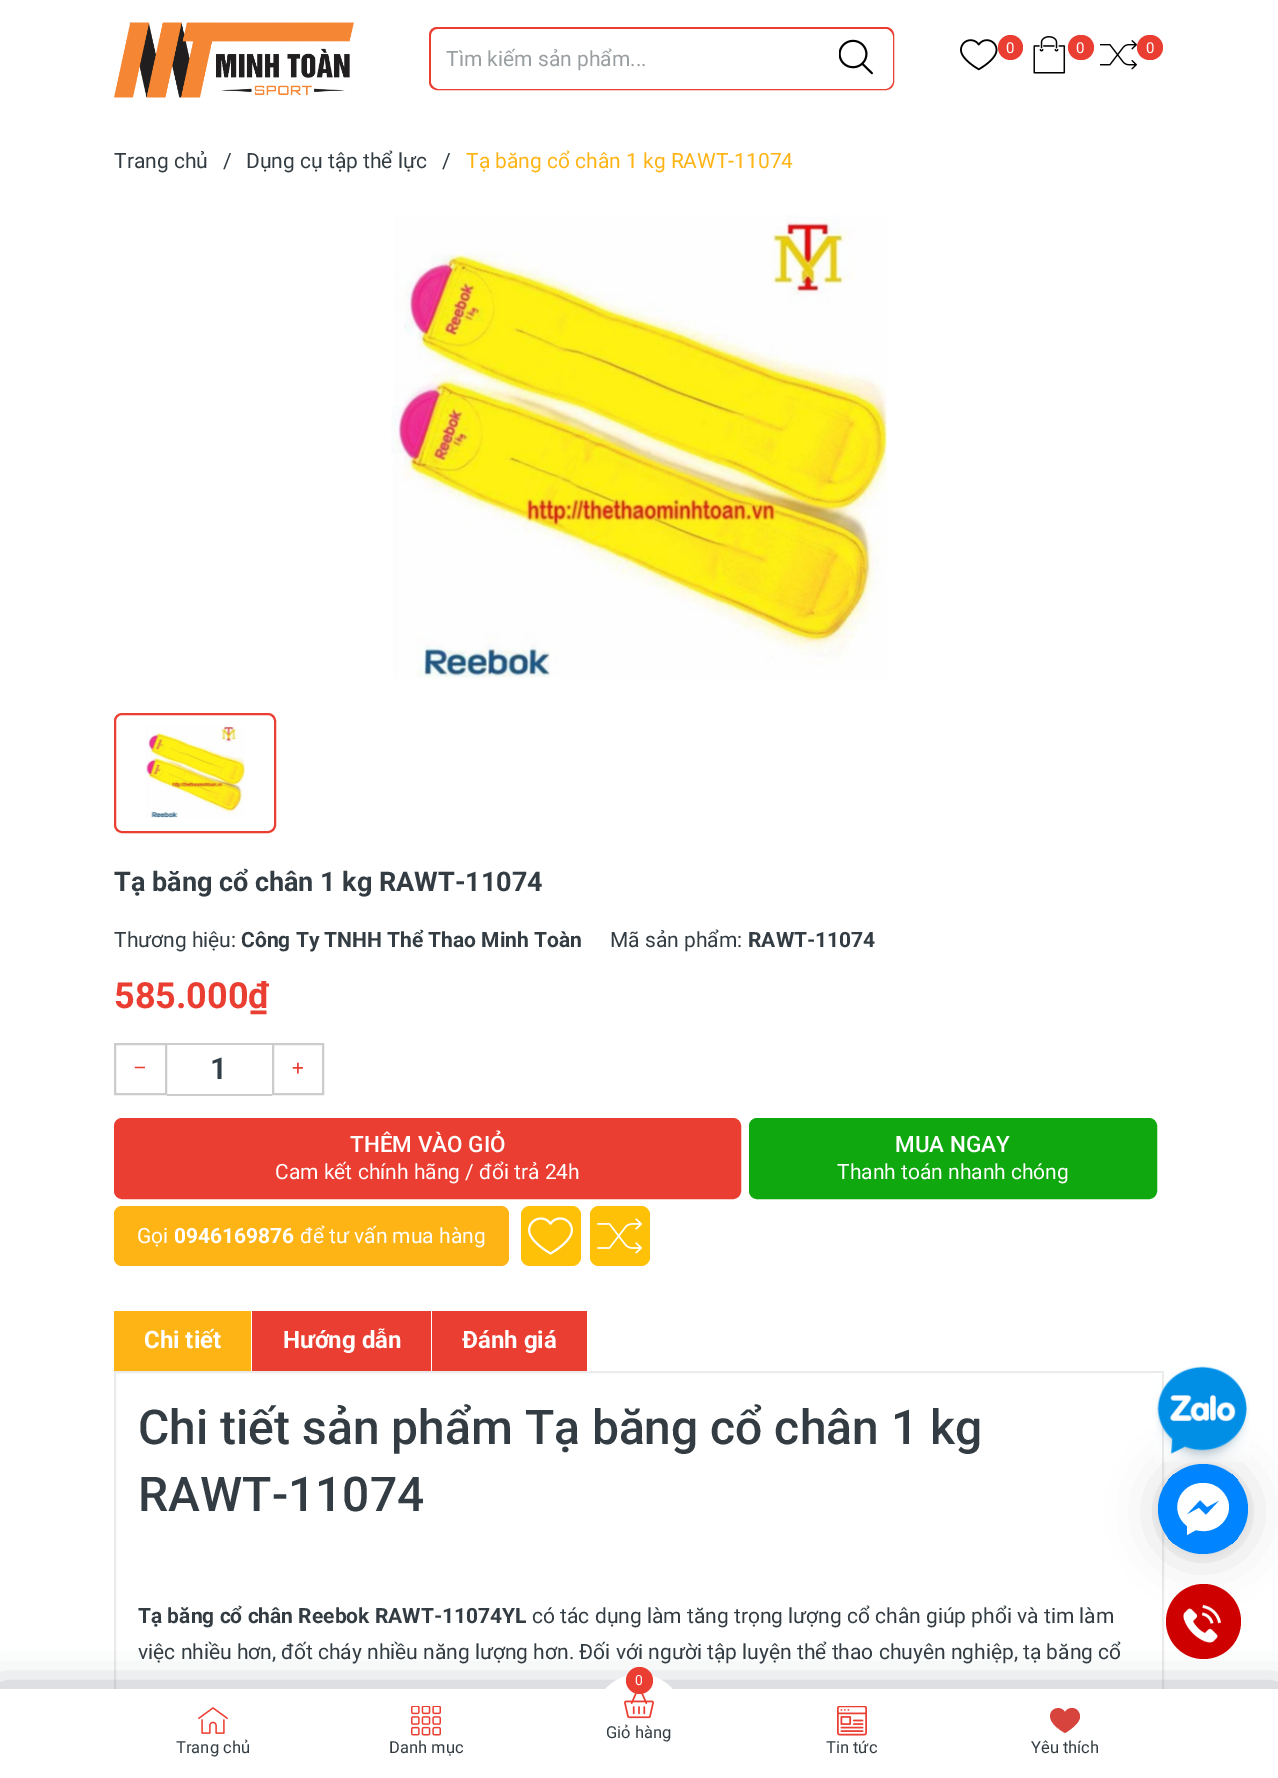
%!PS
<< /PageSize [1278 1778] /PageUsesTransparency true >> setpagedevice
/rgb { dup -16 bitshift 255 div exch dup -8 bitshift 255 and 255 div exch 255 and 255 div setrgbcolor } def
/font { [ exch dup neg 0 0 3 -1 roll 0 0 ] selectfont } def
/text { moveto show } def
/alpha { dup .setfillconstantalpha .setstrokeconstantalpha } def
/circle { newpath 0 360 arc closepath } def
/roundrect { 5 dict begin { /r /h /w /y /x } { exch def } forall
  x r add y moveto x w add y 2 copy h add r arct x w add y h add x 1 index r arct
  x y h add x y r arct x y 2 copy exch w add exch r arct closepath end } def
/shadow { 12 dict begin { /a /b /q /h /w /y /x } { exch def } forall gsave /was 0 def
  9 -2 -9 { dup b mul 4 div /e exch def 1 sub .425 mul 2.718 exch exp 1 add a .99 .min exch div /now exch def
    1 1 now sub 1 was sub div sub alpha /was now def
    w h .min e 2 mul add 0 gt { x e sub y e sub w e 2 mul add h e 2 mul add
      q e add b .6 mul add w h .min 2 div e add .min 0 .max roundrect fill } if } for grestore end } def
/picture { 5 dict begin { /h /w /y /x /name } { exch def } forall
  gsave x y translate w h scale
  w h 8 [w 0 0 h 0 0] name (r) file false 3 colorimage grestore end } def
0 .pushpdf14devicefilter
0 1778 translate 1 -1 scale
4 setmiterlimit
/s1 { /Roboto-Regular 21 font 16#999EA1 rgb } def
/s2 { /Roboto-Regular 15 font 16#FFFFFF rgb } def
/s3 { /Roboto-Regular 21 font 16#323C42 rgb } def
/s4 { /Roboto-Regular 21 font 16#FFB416 rgb } def
/s5 { /Roboto-Bold 27 font 16#323C42 rgb } def
/s6 { /Roboto-Bold 21 font 16#323C42 rgb } def
/s7 { /Roboto-Bold 36 font 16#EB3E32 rgb } def
/s8 { /Roboto-Regular 21 font 16#EB3E32 rgb } def
/s9 { /Roboto-SemiBold 30 font 16#333F48 rgb } def
/s10 { /Roboto-Medium 22.5 font 16#FFFFFF rgb } def
/s11 { /Roboto-Regular 21 font 16#FFFFFF rgb } def
/s12 { /Roboto-Bold 21 font 16#FFFFFF rgb } def
/s13 { /Roboto-Bold 24 font 16#FFFFFF rgb } def
/s14 { /Roboto-Medium 48 font 16#323C42 rgb } def
/s15 { /Roboto-Regular 14 font 16#FFFFFF rgb } def
/s16 { /Roboto-Regular 16.5 font 16#323C42 rgb } def
16#FFFFFF rgb
0 0 1278 1778 rectfill
(pic1.raw) 114 22 240 76 picture
16#EB3E32 rgb
2 setlinewidth
430 28 463 61 7 roundrect stroke
16#FFFFFF rgb
431 29 462 60 9 roundrect fill
s1
(Tìm kiếm sản phẩm...) 446 66 text
(pic2.raw) 839 39 34 36 picture
(pic3.raw) 960 39 38 32 picture
16#EB3E32 rgb
1010.5 47.5 12.5 circle fill
s2
(0) 1006 53 text
(pic4.raw) 1033 36 33 38 picture
16#EB3E32 rgb
1068 35 26 25 12.5 roundrect fill
s2
(0) 1076 53 text
(pic5.raw) 1100 40 37 30 picture
16#EB3E32 rgb
1137 35 26 25 12.5 roundrect fill
s2
(0) 1146 53 text
s3
(Trang chủ) 114 168 text
(/) 223 168 text
(Dụng cụ tập thể lực) 246 168 text
(/) 442 168 text
s4
(Tạ băng cổ chân 1 kg RAWT-11074) 466 168 text
(pic6.raw) 391 215 496 464 picture
16#EB3E32 rgb
115 714 160 118 7 roundrect stroke
(pic7.raw) 145 725 100 93 picture
s5
(Tạ băng cổ chân 1 kg RAWT-11074) 114 891 text
s3
(Thương hiệu:) 114 947 text
s6
(Công Ty TNHH Thể Thao Minh Toàn) 241 947 text
s3
(Mã sản phẩm:) 610 947 text
s6
(RAWT-11074) 748 947 text
s7
(585.000₫) 114 1008 text
16#CCCCCC rgb
115 1044 51 50 rectstroke
s8
(–) 133 1075 text
16#CCCCCC rgb
167 1043 105 2 rectfill
167 1094 105 2 rectfill
s9
(1) 210 1079 text
16#CCCCCC rgb
273 1044 50 50 rectstroke
s8
(+) 292 1075 text
115 1119 625 79 7 roundrect gsave fill grestore
stroke
s10
(THÊM VÀO GIỎ) 350 1152 text
s11
(Cam kết chính hãng / đổi trả 24h) 275 1179 text
16#0FA80F rgb
750 1119 406 79 7 roundrect gsave fill grestore
stroke
s10
(MUA NGAY) 895 1152 text
s11
(Thanh toán nhanh chóng) 837 1179 text
16#FFB416 rgb
114 1206 395 60 8 roundrect fill
s11
(Gọi) 137 1243 text
s12
(0946169876) 174 1243 text
s11
(để tư vấn mua hàng) 300 1243 text
16#FFC107 rgb
521 1206 60 60 9 roundrect fill
(pic8.raw) 528 1217 45 38 picture
590 1206 60 60 9 roundrect fill
(pic9.raw) 597 1218 45 36 picture
16#FFB416 rgb
114 1311 137 60 rectfill
s13
(Chi tiết) 144 1348 text
16#EB3E32 rgb
252 1311 179 60 rectfill
s13
(Hướng dẫn) 283 1348 text
16#EB3E32 rgb
432 1311 155 60 rectfill
s13
(Đánh giá) 462 1348 text
16#EBEBEB rgb
115 1372 1048 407 rectstroke
s14
(Chi tiết sản phẩm Tạ băng cổ chân 1 kg) 138 1444 text
(RAWT-11074) 138 1511 text
s6
(Tạ băng cổ chân Reebok RAWT-11074YL) 138 1623 text
s3
(có tác dụng làm tăng trọng lượng cổ chân giúp phổi và tim làm) 532 1623 text
(việc nhiều hơn, đốt cháy nhiều năng lượng hơn. Đối với người tập luyện thể thao chuyên nghiệp, tạ băng cổ) 138 1659 text
16#000000 rgb
1158 1467 90 90 45 24 0.16 shadow
1158 1466 90 90 45 4.5 0.06 shadow
(pic10.raw) 1155 1366 95 96 picture
16#0084FF rgb
1203 1509 45 circle fill
gsave
1158 1464 90 90 45 roundrect clip newpath
1167 1473 72 72 rectfill
grestore
16#FFFFFF rgb
1203 1483 moveto 1179 1483 1168 1511 1187 1526 curveto 1187 1535 lineto 1196 1530 lineto 1220 1537 1241 1509 1221 1490 curveto 1216 1485 1210 1483 1203 1483 curveto closepath 1206 1515 moveto 1199 1508 lineto 1186 1515 lineto 1200 1500 lineto 1207 1507 lineto 1220 1500 lineto closepath fill
16#1F2643 rgb
0 1694 1278 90 0 19 0.5 shadow
16#CE0000 rgb
1203.5 1621.5 37.5 circle fill
(pic11.raw) 1183 1604 38 39 picture
16#FFFFFF rgb
0 1689 1278 89 rectfill
639 1719 45 circle fill
(pic12.raw) 624 1693 30 26 picture
16#EB3E32 rgb
639.5 1680.5 13.5 circle fill
s15
(0) 635 1685 text
s16
(Giỏ hàng) 606 1738 text
(pic13.raw) 198 1707 30 27 picture
(Trang chủ) 176 1753 text
(pic14.raw) 411 1706 30 30 picture
(Danh mục) 389 1753 text
(pic15.raw) 837 1706 30 30 picture
(Tin tức) 826 1753 text
16#D7443E rgb
1072 1708 moveto 1076.5 1708 1080 1712 1080 1716.5 curveto 1080 1724.5 1065 1733 1065 1733 curveto 1035.5 1716.5 1057.5 1700.5 1065 1712 curveto 1066.5 1709.5 1069 1708 1072 1708 curveto closepath fill
s16
(Yêu thích) 1031 1753 text
.poppdf14devicefilter showpage
